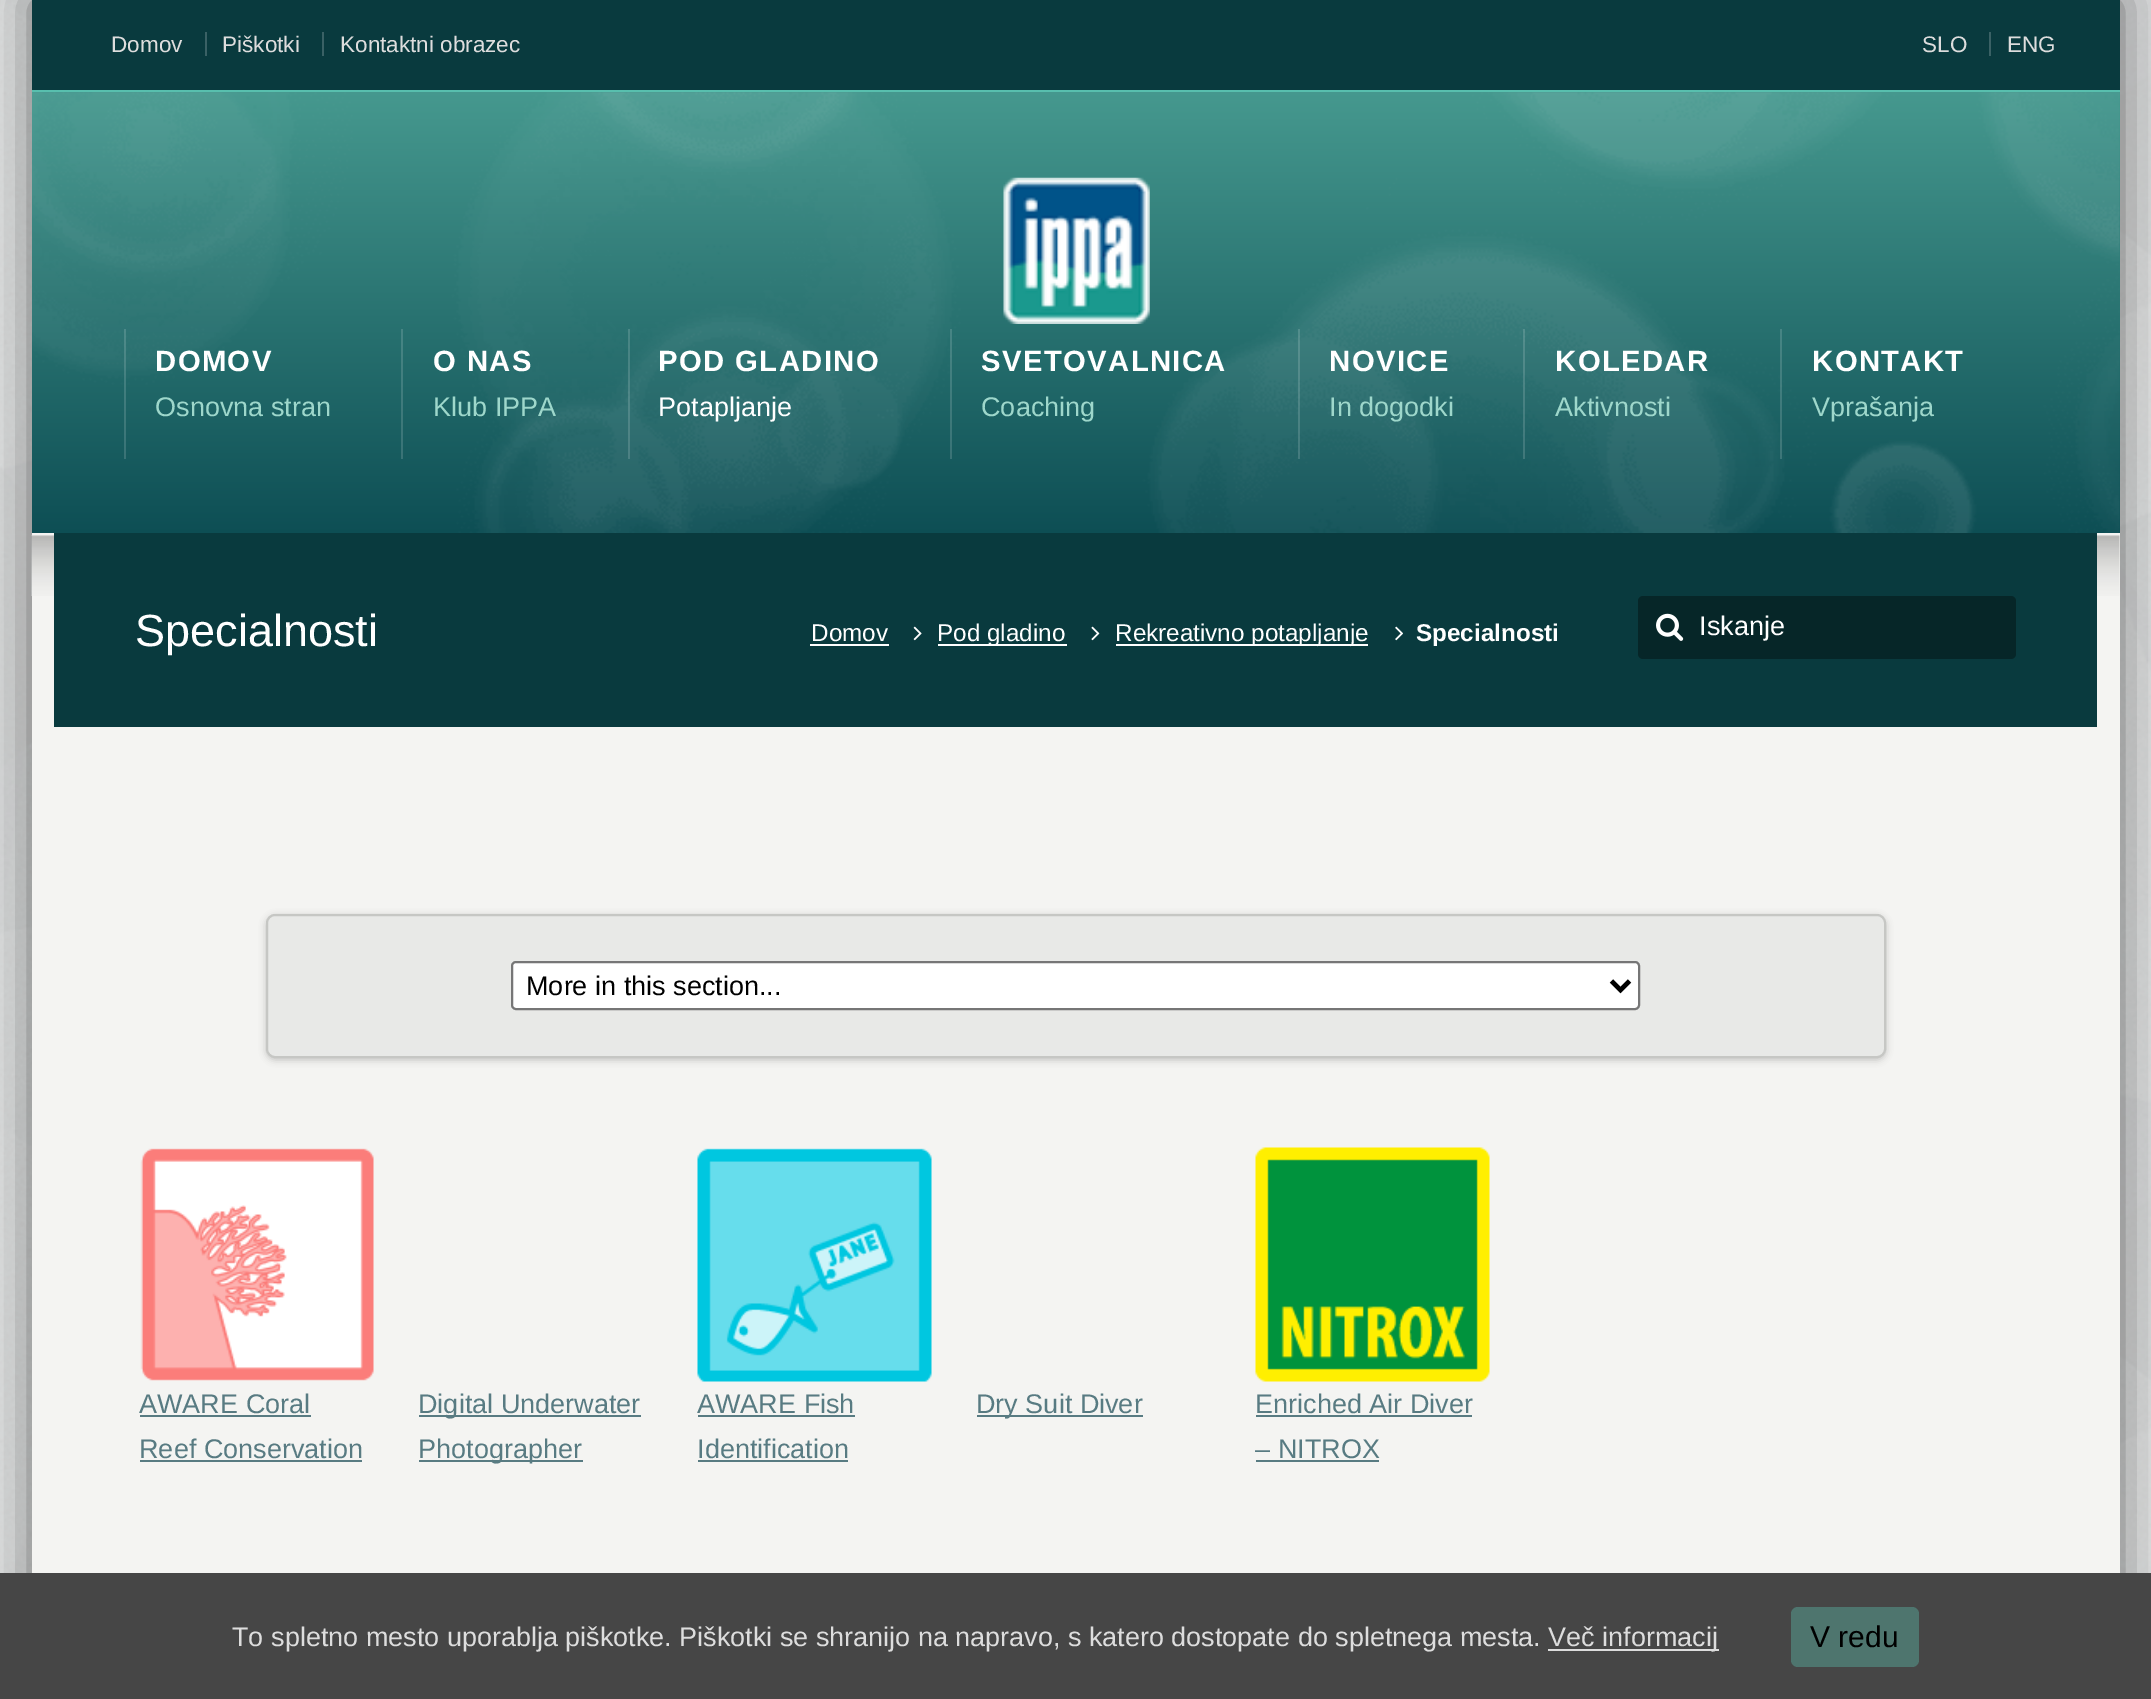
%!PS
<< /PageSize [2151 1699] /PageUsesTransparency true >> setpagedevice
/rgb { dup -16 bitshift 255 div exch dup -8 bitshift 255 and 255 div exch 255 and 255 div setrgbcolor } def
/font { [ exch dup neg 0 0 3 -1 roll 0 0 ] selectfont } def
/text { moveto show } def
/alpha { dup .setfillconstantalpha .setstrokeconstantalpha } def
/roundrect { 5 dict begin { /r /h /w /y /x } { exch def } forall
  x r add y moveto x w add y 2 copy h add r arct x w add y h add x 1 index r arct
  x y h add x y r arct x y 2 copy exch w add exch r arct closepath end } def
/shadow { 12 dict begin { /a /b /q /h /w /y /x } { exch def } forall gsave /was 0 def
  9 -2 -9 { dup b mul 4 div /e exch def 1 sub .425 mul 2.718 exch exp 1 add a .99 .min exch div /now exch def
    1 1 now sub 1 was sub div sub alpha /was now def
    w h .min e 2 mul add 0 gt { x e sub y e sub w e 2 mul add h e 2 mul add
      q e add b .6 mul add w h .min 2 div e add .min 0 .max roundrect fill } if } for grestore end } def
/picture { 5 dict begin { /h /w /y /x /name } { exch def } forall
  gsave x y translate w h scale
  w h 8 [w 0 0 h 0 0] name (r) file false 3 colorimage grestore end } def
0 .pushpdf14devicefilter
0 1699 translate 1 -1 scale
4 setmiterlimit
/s1 { /LiberationSans-Regular 22.5 font 16#DDDDDD rgb } def
/s2 { /LiberationSans-Regular 27 font 16#9ED7CB rgb } def
/s3 { /LiberationSans-Regular 27 font 16#FFFFFF rgb } def
/s4 { /LiberationSans-Regular 45 font 16#FFFFFF rgb } def
/s5 { /LiberationSans-Regular 24.25 font 16#FFFFFF rgb } def
/s6 { /LiberationSans-Bold 24.25 font 16#FFFFFF rgb } def
/s7 { /LiberationSans-Regular 27 font 16#000000 rgb } def
/s8 { /LiberationSans-Regular 27 font 16#587B82 rgb } def
/s9 { /LiberationSans-Regular 27 font 16#DDDDDD rgb } def
/s10 { /LiberationSans-Regular 30 font 16#000000 rgb } def
16#FFFFFF rgb
0 0 2151 1699 rectfill
(pic1.raw) 0 0 2151 1573 picture
16#000000 rgb
32 0 2088 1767 0 22.5 0.5 shadow
16#F4F4F2 rgb
32 533 2088 1040 rectfill
16#093A3E rgb
32 0 2088 90 rectfill
s1
(Domov) 111 52 text
16#3A6165 rgb
205 32 2 24 rectfill
s1
(Piškotki) 222 52 text
16#3A6165 rgb
322 32 2 24 rectfill
s1
(Kontaktni obrazec) 340 52 text
(SLO) 1922 52 text
16#3A6165 rgb
1989 32 2 24 rectfill
s1
(ENG) 2007 52 text
gsave 32 92 moveto 2120 92 lineto 2120 533 lineto 32 533 lineto closepath clip newpath
<< /ShadingType 2 /ColorSpace /DeviceRGB /Coords [1076 92 1076 533] /Extend [true true] /Function << /FunctionType 2 /Domain [0 1] /C0 [0.271 0.596 0.557] /C1 [0.051 0.306 0.329] /N 1 >> >> shfill grestore
16#58BFAE rgb
32 90 2088 2 rectfill
(pic2.raw) 32 92 2088 441 picture
(pic3.raw) 1003 177 147 147 picture
0.15 alpha
16#FFFFFF rgb
124 329 2 130 rectfill
/LiberationSans-Bold 29.25 font
1 alpha
155 371 moveto 1.4 0 (DOMOV) ashow
s2
(Osnovna stran) 155 416 text
0.15 alpha
16#FFFFFF rgb
401 329 2 130 rectfill
/LiberationSans-Bold 29.25 font
1 alpha
433 371 moveto 1.4 0 (O NAS) ashow
s2
(Klub IPPA) 433 416 text
0.15 alpha
16#FFFFFF rgb
628 329 2 130 rectfill
/LiberationSans-Bold 29.25 font
1 alpha
658 371 moveto 1.4 0 (POD GLADINO) ashow
s3
(Potapljanje) 658 416 text
0.15 alpha
950 329 2 130 rectfill
/LiberationSans-Bold 29.25 font
1 alpha
981 371 moveto 1.4 0 (SVETOVALNICA) ashow
s2
(Coaching) 981 416 text
0.15 alpha
16#FFFFFF rgb
1298 329 2 130 rectfill
/LiberationSans-Bold 29.25 font
1 alpha
1329 371 moveto 1.4 0 (NOVICE) ashow
s2
(In dogodki) 1329 416 text
0.15 alpha
16#FFFFFF rgb
1523 329 2 130 rectfill
/LiberationSans-Bold 29.25 font
1 alpha
1555 371 moveto 1.4 0 (KOLEDAR) ashow
s2
(Aktivnosti) 1555 416 text
0.15 alpha
16#FFFFFF rgb
1780 329 2 130 rectfill
/LiberationSans-Bold 29.25 font
1 alpha
1812 371 moveto 1.4 0 (KONTAKT) ashow
s2
(Vprašanja) 1812 416 text
(pic4.raw) 31 535 2089 61 picture
16#093A3E rgb
54 533 2043 194 rectfill
s4
(Specialnosti) 135 646 text
s5
(Domov) 811 641 text
810 644 79 2 rectfill
(pic5.raw) 913 626 9 15 picture
938 644 129 2 rectfill
(Pod gladino) 937 641 text
(pic6.raw) 1091 626 9 15 picture
1116 644 252 2 rectfill
(Rekreativno potapljanje) 1115 641 text
(pic7.raw) 1395 626 8 15 picture
s6
(Specialnosti) 1416 641 text
16#062628 rgb
1638 596 378 63 5 roundrect fill
(pic8.raw) 1656 613 28 28 picture
s3
(Iskanje) 1699 635 text
16#000000 rgb
266 916 1620 144 9 3.5 0.2 shadow
16#E8E9E7 rgb
267 915 1618 142 8 roundrect gsave fill grestore
16#C6C7C4 rgb
2 setlinewidth
stroke
16#FFFFFF rgb
512 962 1127 47 4 roundrect gsave fill grestore
16#767676 rgb
stroke
16#000000 rgb
4.5 setlinewidth
1611.5 981 moveto 1620.5 990 lineto 1629.5 981 lineto stroke
(More in this section...) 526 995 text
(pic9.raw) 140 1148 234 233 picture
s8
(AWARE Coral) 139 1413 text
140 1415 171 2 rectfill
(Reef Conservation) 139 1458 text
140 1460 222 2 rectfill
419 1415 222 2 rectfill
(Digital Underwater) 418 1413 text
419 1460 164 2 rectfill
(Photographer) 418 1458 text
(pic10.raw) 697 1148 235 234 picture
(AWARE Fish) 697 1413 text
698 1415 157 2 rectfill
(Identification) 697 1458 text
698 1460 150 2 rectfill
977 1415 166 2 rectfill
(Dry Suit Diver) 976 1413 text
(pic11.raw) 1255 1147 235 235 picture
(Enriched Air Diver) 1255 1413 text
1256 1415 216 2 rectfill
(– NITROX) 1255 1458 text
1256 1460 123 2 rectfill
16#464646 rgb
0 1573 2151 126 rectfill
s9
(To spletno mesto uporablja piškotke. Piškotki se shranijo na napravo, s katero dostopate do spletnega mesta.) 232 1646 text
1548 1649 171 2 rectfill
(Več informacij) 1548 1646 text
16#4E756E rgb
1791 1607 128 60 7 roundrect fill
s10
(V redu) 1810 1647 text
.poppdf14devicefilter showpage
